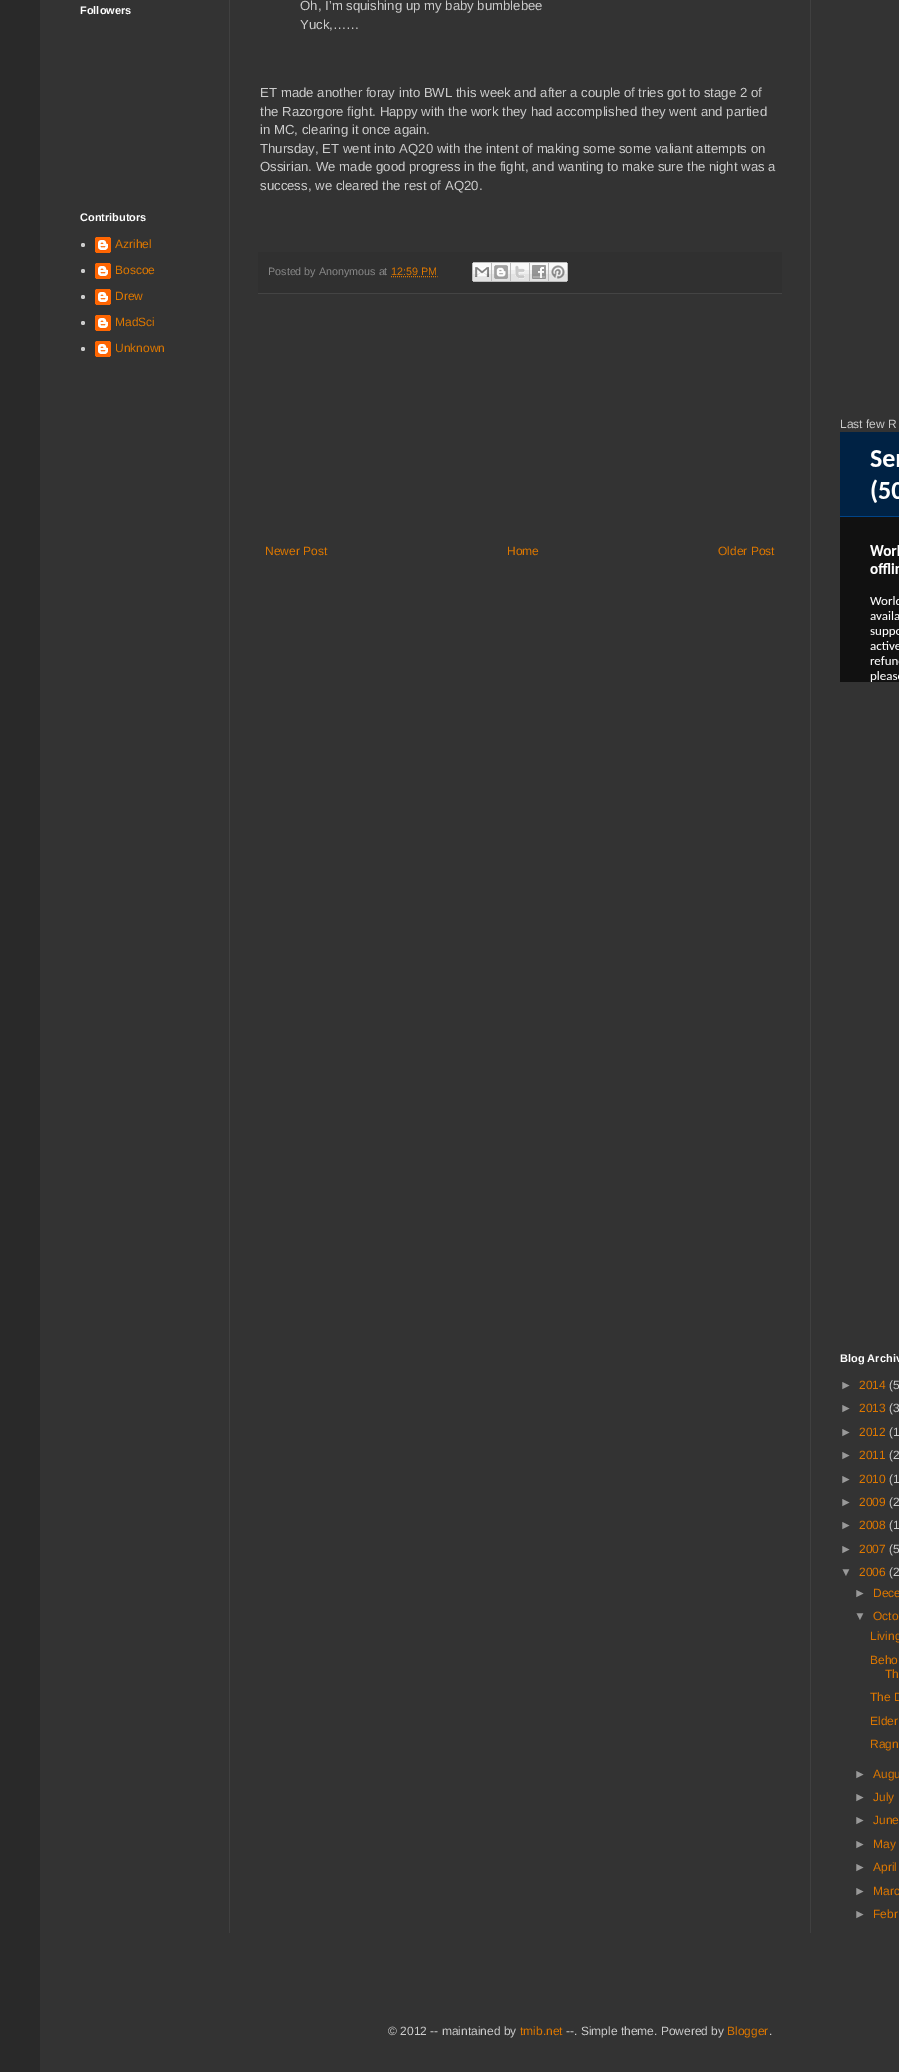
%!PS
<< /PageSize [899 2072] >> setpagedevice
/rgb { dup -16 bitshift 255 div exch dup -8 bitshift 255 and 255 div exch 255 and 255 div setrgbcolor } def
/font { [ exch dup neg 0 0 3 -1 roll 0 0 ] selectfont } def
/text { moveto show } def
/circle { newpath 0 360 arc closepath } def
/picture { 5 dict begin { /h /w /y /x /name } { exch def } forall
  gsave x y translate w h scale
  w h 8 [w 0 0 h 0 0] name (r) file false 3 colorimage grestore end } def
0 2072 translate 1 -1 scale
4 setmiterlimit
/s1 { /LiberationSans-Bold 11 font 16#FFFFFF rgb } def
/s2 { /LiberationSans-Regular 12 font 16#DD7700 rgb } def
/s3 { /LiberationSans-Regular 13.2 font 16#CCCCCC rgb } def
/s4 { /LiberationSans-Regular 10.75 font 16#888888 rgb } def
/s5 { /LiberationSans-Regular 10.75 font 16#DD7700 rgb } def
/s6 { /LiberationSans-Regular 12 font 16#CCCCCC rgb } def
/s7 { /LiberationSans-Regular 12 font 16#999999 rgb } def
16#292929 rgb
0 0 899 2072 rectfill
16#333333 rgb
40 0 859 2072 rectfill
s1
(Followers) 80 14 text
(Contributors) 80 221 text
16#CCCCCC rgb
83 245 2 circle fill
(pic1.raw) 95 237 16 16 picture
s2
(Azrihel) 115 248 text
16#CCCCCC rgb
83 271 2 circle fill
(pic1.raw) 95 263 16 16 picture
s2
(Boscoe) 115 274 text
16#CCCCCC rgb
83 297 2 circle fill
(pic1.raw) 95 289 16 16 picture
s2
(Drew) 115 300 text
16#CCCCCC rgb
83 323 2 circle fill
(pic1.raw) 95 315 16 16 picture
s2
(MadSci) 115 326 text
16#CCCCCC rgb
83 349 2 circle fill
(pic1.raw) 95 341 16 16 picture
s2
(Unknown) 115 352 text
s3
(Oh, I’m squishing up my baby bumblebee) 300 10 text
(Yuck,……) 300 29 text
(ET made another foray into BWL this week and after a couple of tries got to stage 2 of) 260 97 text
(the Razorgore fight. Happy with the work they had accomplished they went and partied) 260 116 text
(in MC, clearing it once again.) 260 134 text
(Thursday, ET went into AQ20 with the intent of making some some valiant attempts on) 260 153 text
(Ossirian. We made good progress in the fight, and wanting to make sure the night was a) 260 171 text
(success, we cleared the rest of AQ20.) 260 190 text
16#303030 rgb
258 252 524 41 rectfill
16#444444 rgb
258 293 524 1 rectfill
s4
(Posted by Anonymous at) 268 275 text
s5
(12:59 PM) 391 275 text
[1 1] 0 setdash
391 276.5 moveto 437.5 276.5 lineto stroke
(pic2.raw) 472 262 20 20 picture
(pic3.raw) 492 262 19 20 picture
(pic4.raw) 511 262 19 20 picture
(pic5.raw) 530 262 19 20 picture
(pic6.raw) 549 262 19 20 picture
s2
(Newer Post) 265 555 text
(Home) 507 555 text
(Older Post) 718 555 text
s6
(Last few R) 840 428 text
(pic7.raw) 840 432 59 250 picture
s1
(Blog Archiv) 840 1362 text
s7
(►) 840 1389 text
s2
(2014) 859 1389 text
s6
(\(5) 889 1389 text
s7
(►) 840 1412 text
s2
(2013) 859 1412 text
s6
(\(3) 889 1412 text
s7
(►) 840 1436 text
s2
(2012) 859 1436 text
s6
(\(1) 889 1436 text
s7
(►) 840 1459 text
s2
(2011) 859 1459 text
s6
(\(2) 889 1459 text
s7
(►) 840 1483 text
s2
(2010) 859 1483 text
s6
(\(1) 889 1483 text
s7
(►) 840 1506 text
s2
(2009) 859 1506 text
s6
(\(2) 889 1506 text
s7
(►) 840 1529 text
s2
(2008) 859 1529 text
s6
(\(1) 889 1529 text
s7
(►) 840 1553 text
s2
(2007) 859 1553 text
s6
(\(5) 889 1553 text
s7
(▼) 840 1576 text
s2
(2006) 859 1576 text
s6
(\(2) 889 1576 text
s7
(►) 854 1597 text
s2
(Dece) 873 1597 text
s7
(▼) 854 1620 text
s2
(Octo) 873 1620 text
(Living) 870 1640 text
(Beho) 870 1664 text
(Th) 885 1678 text
(The D) 870 1701 text
(Elder) 870 1725 text
(Ragn) 870 1748 text
s7
(►) 854 1778 text
s2
(Augu) 873 1778 text
s7
(►) 854 1801 text
s2
(July) 873 1801 text
s7
(►) 854 1824 text
s2
(June) 873 1824 text
s7
(►) 854 1848 text
s2
(May) 873 1848 text
s7
(►) 854 1871 text
s2
(April) 873 1871 text
s7
(►) 854 1895 text
s2
(Marc) 873 1895 text
s7
(►) 854 1918 text
s2
(Febr) 873 1918 text
16#404040 rgb
229 0 1 1933 rectfill
810 0 1 1933 rectfill
s6
(© 2012 -- maintained by) 388 2035 text
s2
(tmib.net) 520 2035 text
s6
(--. Simple theme. Powered by) 566 2035 text
s2
(Blogger) 727 2035 text
s6
(.) 769 2035 text
showpage
